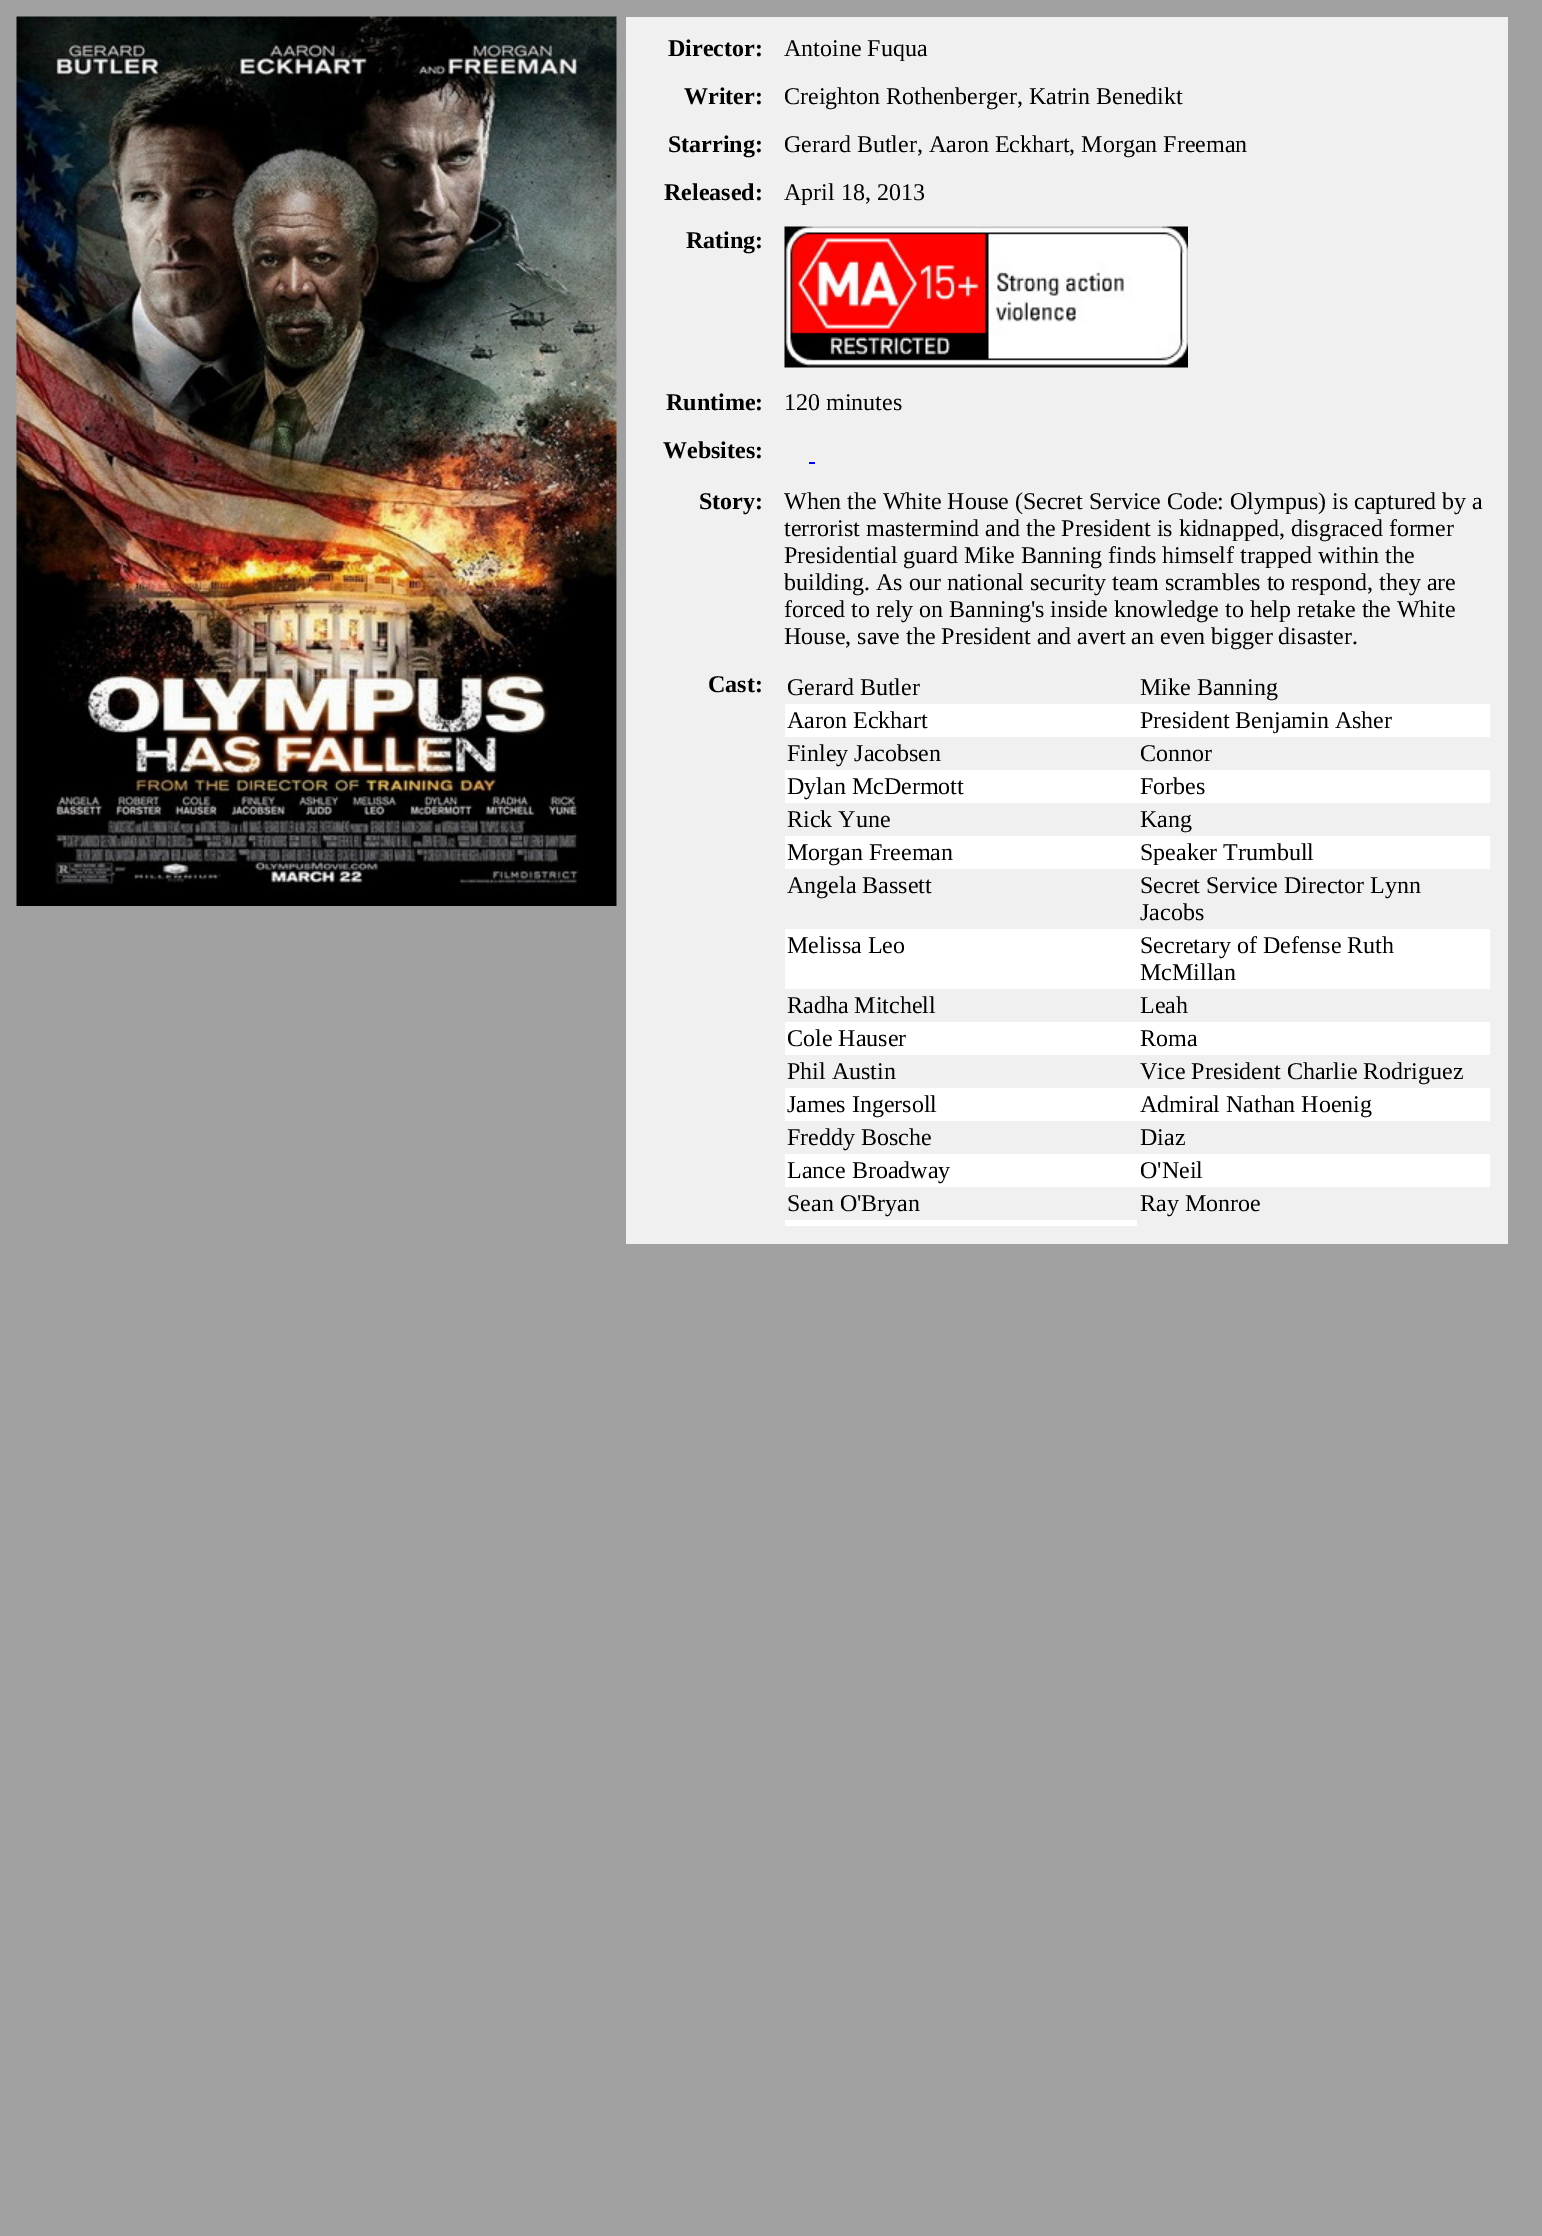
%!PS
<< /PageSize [1542 2236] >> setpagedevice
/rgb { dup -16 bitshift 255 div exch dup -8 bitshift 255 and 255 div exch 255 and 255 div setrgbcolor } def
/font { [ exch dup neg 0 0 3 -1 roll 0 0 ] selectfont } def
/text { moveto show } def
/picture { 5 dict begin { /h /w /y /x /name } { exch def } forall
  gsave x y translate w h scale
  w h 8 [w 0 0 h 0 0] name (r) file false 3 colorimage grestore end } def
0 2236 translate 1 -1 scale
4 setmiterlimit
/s1 { /LiberationSerif-Bold 24 font 16#000000 rgb } def
/s2 { /LiberationSerif-Regular 24 font 16#000000 rgb } def
16#A0A0A0 rgb
0 0 1542 2236 rectfill
(pic1.raw) 16 16 601 890 picture
16#F0F0F0 rgb
626 17 882 1227 rectfill
s1
(Director:) 668 56 text
s2
(Antoine Fuqua) 784 56 text
s1
(Writer:) 684 104 text
s2
(Creighton Rothenberger, Katrin Benedikt) 784 104 text
s1
(Starring:) 668 152 text
s2
(Gerard Butler, Aaron Eckhart, Morgan Freeman) 784 152 text
s1
(Released:) 664 200 text
s2
(April 18, 2013) 784 200 text
s1
(Rating:) 686 248 text
(pic2.raw) 784 226 404 142 picture
(Runtime:) 666 410 text
s2
(120 minutes) 784 410 text
s1
(Websites:) 663 458 text
16#0000EE rgb
809 462 6 2 rectfill
s1
(Story:) 699 509 text
s2
(When the White House \(Secret Service Code: Olympus\) is captured by a) 784 509 text
(terrorist mastermind and the President is kidnapped, disgraced former) 784 536 text
(Presidential guard Mike Banning finds himself trapped within the) 784 563 text
(building. As our national security team scrambles to respond, they are) 784 590 text
(forced to rely on Banning's inside knowledge to help retake the White) 784 617 text
(House, save the President and avert an even bigger disaster.) 784 644 text
s1
(Cast:) 708 692 text
s2
(Gerard Butler) 787 695 text
(Mike Banning) 1140 695 text
16#FFFFFF rgb
785 704 705 33 rectfill
s2
(Aaron Eckhart) 787 728 text
(President Benjamin Asher) 1140 728 text
(Finley Jacobsen) 787 761 text
(Connor) 1140 761 text
16#FFFFFF rgb
785 770 705 33 rectfill
s2
(Dylan McDermott) 787 794 text
(Forbes) 1140 794 text
(Rick Yune) 787 827 text
(Kang) 1140 827 text
16#FFFFFF rgb
785 836 705 33 rectfill
s2
(Morgan Freeman) 787 860 text
(Speaker Trumbull) 1140 860 text
(Angela Bassett) 787 893 text
(Secret Service Director Lynn) 1140 893 text
(Jacobs) 1140 920 text
16#FFFFFF rgb
785 929 705 60 rectfill
s2
(Melissa Leo) 787 953 text
(Secretary of Defense Ruth) 1140 953 text
(McMillan) 1140 980 text
(Radha Mitchell) 787 1013 text
(Leah) 1140 1013 text
16#FFFFFF rgb
785 1022 705 33 rectfill
s2
(Cole Hauser) 787 1046 text
(Roma) 1140 1046 text
(Phil Austin) 787 1079 text
(Vice President Charlie Rodriguez) 1140 1079 text
16#FFFFFF rgb
785 1088 705 33 rectfill
s2
(James Ingersoll) 787 1112 text
(Admiral Nathan Hoenig) 1140 1112 text
(Freddy Bosche) 787 1145 text
(Diaz) 1140 1145 text
16#FFFFFF rgb
785 1154 705 33 rectfill
s2
(Lance Broadway) 787 1178 text
(O'Neil) 1140 1178 text
(Sean O'Bryan) 787 1211 text
(Ray Monroe) 1140 1211 text
16#FFFFFF rgb
785 1220 352 6 rectfill
showpage
